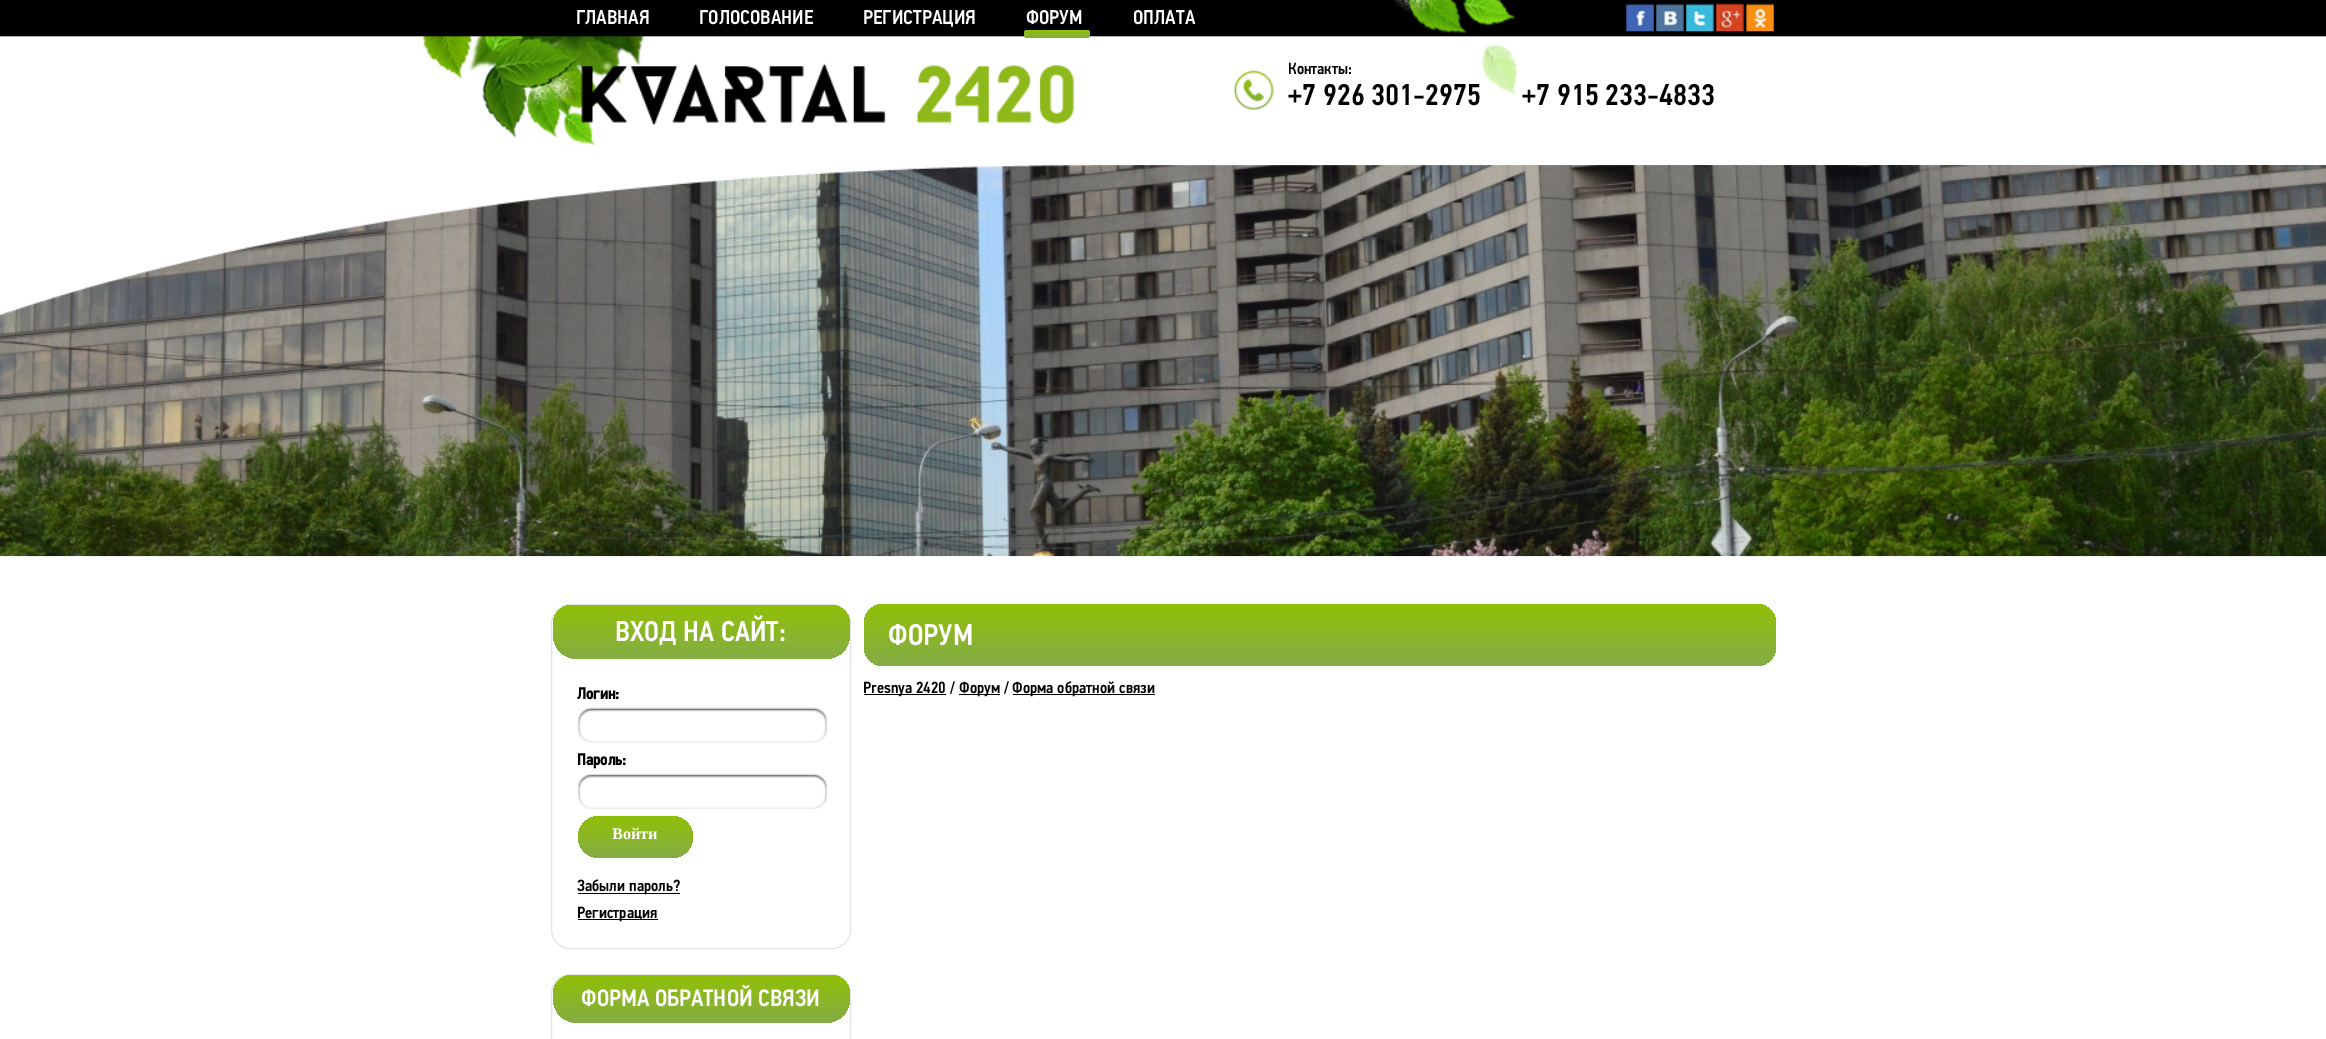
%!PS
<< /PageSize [2326 1039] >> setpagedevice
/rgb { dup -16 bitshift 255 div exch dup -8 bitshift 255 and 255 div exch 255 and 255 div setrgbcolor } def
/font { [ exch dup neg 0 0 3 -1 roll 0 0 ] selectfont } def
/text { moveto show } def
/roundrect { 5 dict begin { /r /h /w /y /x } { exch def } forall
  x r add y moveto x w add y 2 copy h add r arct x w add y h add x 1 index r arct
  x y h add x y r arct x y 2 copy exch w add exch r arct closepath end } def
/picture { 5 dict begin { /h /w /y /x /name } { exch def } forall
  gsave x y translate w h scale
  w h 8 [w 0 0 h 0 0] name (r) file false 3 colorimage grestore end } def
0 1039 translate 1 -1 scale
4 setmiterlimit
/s1 { /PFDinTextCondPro-Medium 20 font 16#FFFFFF rgb } def
/s2 { /PFDinTextCondPro-Medium 16.25 font 16#000000 rgb } def
/s3 { /PFDinTextCondPro-Medium 30 font 16#000000 rgb } def
/s4 { /PFDinTextCondPro-Medium 28.75 font 16#FFFFFF rgb } def
/s5 { /PFDinTextCondPro-Bold 16.25 font 16#000000 rgb } def
/s6 { /LiberationSerif-Bold 16.25 font 16#FFFFFF rgb } def
/s7 { /PFDinTextCondPro-Medium 23.75 font 16#FFFFFF rgb } def
/s8 { /PFDinTextCondPro-Medium 30 font 16#FFFFFF rgb } def
16#FFFFFF rgb
0 0 2326 1039 rectfill
(pic9.raw) 0 165 2326 392 picture
(pic1.raw) 0 0 2326 316 picture
s1
(ГЛАВНАЯ) 576 24 text
(ГОЛОСОВАНИЕ) 699 24 text
(РЕГИСТРАЦИЯ) 863 24 text
(ФОРУМ) 1026 24 text
gsave 1024 30 66 8 4 roundrect clip newpath
<< /ShadingType 2 /ColorSpace /DeviceRGB /Coords [1057 30 1057 38] /Extend [true true] /Function << /FunctionType 2 /Domain [0 1] /C0 [0.569 0.753 0.027] /C1 [0.518 0.675 0.275] /N 1 >> >> shfill grestore
(ОПЛАТА) 1133 24 text
(pic2.raw) 1626 3 28 29 picture
(pic3.raw) 1656 3 28 29 picture
(pic4.raw) 1686 3 28 29 picture
(pic5.raw) 1716 3 28 29 picture
(pic6.raw) 1746 3 28 29 picture
(pic7.raw) 581 63 493 62 picture
(pic8.raw) 1233 70 41 40 picture
s2
(Контакты:) 1288 74 text
s3
(+7 926 301-2975      +7 915 233-4833) 1288 105 text
16#E4E4E4 rgb
551.5 604.5 299 344 18.5 roundrect stroke
gsave 572 605 moveto 831 605 lineto 841.5 605 850 613.5 850 624 curveto 850 634 lineto 850 648 839 659 825 659 curveto 578 659 lineto 564 659 553 648 553 634 curveto 553 624 lineto 553 613.5 561.5 605 572 605 curveto closepath clip newpath
<< /ShadingType 2 /ColorSpace /DeviceRGB /Coords [701 605 701 659] /Extend [true true] /Function << /FunctionType 2 /Domain [0 1] /C0 [0.569 0.753 0.027] /C1 [0.518 0.675 0.275] /N 1 >> >> shfill grestore
s4
(ВХОД НА САЙТ:) 615 641 text
s5
(Логин:) 577 699 text
(pic11.raw) 598 707 216 36 picture
(pic10.raw) 577 707 22 36 picture
(pic12.raw) 807 707 21 36 picture
(Пароль:) 577 765 text
(pic14.raw) 598 773 216 36 picture
(pic13.raw) 577 773 22 36 picture
(pic15.raw) 807 773 21 36 picture
gsave 578 816 115 42 21 roundrect clip newpath
<< /ShadingType 2 /ColorSpace /DeviceRGB /Coords [635 816 635 858] /Extend [true true] /Function << /FunctionType 2 /Domain [0 1] /C0 [0.569 0.753 0.027] /C1 [0.518 0.675 0.275] /N 1 >> >> shfill grestore
s6
(Войти) 612 839 text
16#000000 rgb
578 893 102 1 rectfill
s2
(Забыли пароль?) 577 891 text
578 919 80 1 rectfill
(Регистрация) 577 918 text
16#E4E4E4 rgb
551.5 974.5 299 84 18.5 roundrect stroke
gsave 572 975 moveto 831 975 lineto 841.5 975 850 983.5 850 994 curveto 850 998 lineto 850 1012 839 1023 825 1023 curveto 578 1023 lineto 564 1023 553 1012 553 998 curveto 553 994 lineto 553 983.5 561.5 975 572 975 curveto closepath clip newpath
<< /ShadingType 2 /ColorSpace /DeviceRGB /Coords [701 975 701 1023] /Extend [true true] /Function << /FunctionType 2 /Domain [0 1] /C0 [0.569 0.753 0.027] /C1 [0.518 0.675 0.275] /N 1 >> >> shfill grestore
s7
(ФОРМА ОБРАТНОЙ СВЯЗИ) 581 1006 text
gsave 864 604 912 62 19 roundrect clip newpath
<< /ShadingType 2 /ColorSpace /DeviceRGB /Coords [1320 604 1320 666] /Extend [true true] /Function << /FunctionType 2 /Domain [0 1] /C0 [0.569 0.753 0.027] /C1 [0.518 0.675 0.275] /N 1 >> >> shfill grestore
s8
(ФОРУМ) 888 645 text
16#000000 rgb
864 694 82 1 rectfill
s2
(Presnya 2420 /) 863 693 text
959 694 41 1 rectfill
(Форум /) 959 693 text
1013 694 142 1 rectfill
(Форма обратной связи) 1012 693 text
showpage
